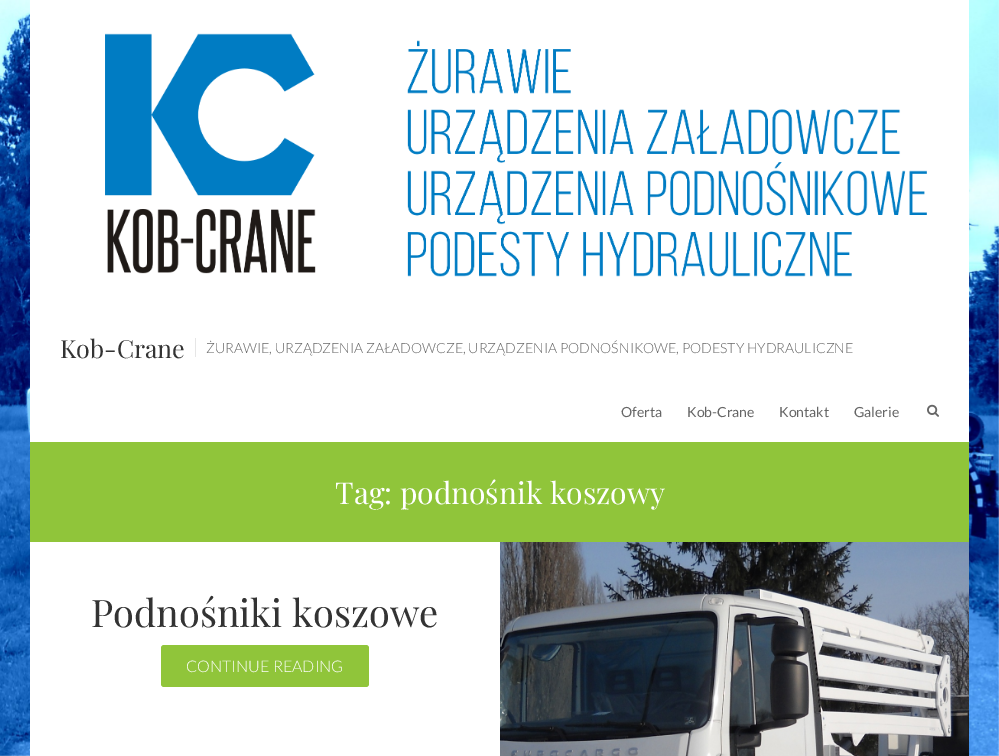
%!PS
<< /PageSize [999 756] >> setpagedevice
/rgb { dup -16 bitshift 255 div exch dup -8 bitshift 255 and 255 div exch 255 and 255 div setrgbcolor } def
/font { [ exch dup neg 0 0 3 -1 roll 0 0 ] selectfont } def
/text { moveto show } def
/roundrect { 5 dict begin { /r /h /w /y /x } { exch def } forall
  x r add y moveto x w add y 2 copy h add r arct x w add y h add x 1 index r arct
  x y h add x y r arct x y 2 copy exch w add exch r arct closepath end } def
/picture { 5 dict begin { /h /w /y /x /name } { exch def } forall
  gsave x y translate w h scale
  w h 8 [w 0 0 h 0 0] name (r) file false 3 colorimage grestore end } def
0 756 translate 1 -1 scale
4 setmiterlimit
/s1 { /PlayfairDisplay-Regular 25 font 16#333333 rgb } def
/s2 { /Lato-Light 14 font 16#666666 rgb } def
/s3 { /Lato-Regular 14 font 16#666666 rgb } def
/s4 { /PlayfairDisplay-Regular 30 font 16#FFFFFF rgb } def
/s5 { /PlayfairDisplay-Regular 38 font 16#333333 rgb } def
/s6 { /Lato-Light 16 font 16#FFFFFF rgb } def
16#ECECEC rgb
0 0 999 756 rectfill
(pic1.raw) 0 0 999 756 picture
16#FFFFFF rgb
30 0 939 756 rectfill
(pic2.raw) 105 33 822 244 picture
s1
(Kob-Crane) 60 358 text
16#E6E6E6 rgb
195 338 1 19 rectfill
s2
(ŻURAWIE, URZĄDZENIA ZAŁADOWCZE, URZĄDZENIA PODNOŚNIKOWE, PODESTY HYDRAULICZNE) 206 353 text
s3
(Oferta) 621 417 text
(Kob-Crane) 687 417 text
(Kontakt) 779 417 text
(Galerie) 854 417 text
(pic3.raw) 927 404 12 13 picture
16#90C53A rgb
30 442 939 100 rectfill
s4
(Tag: podnośnik koszowy) 335 504 text
s5
(Podnośniki koszowe) 91 627 text
16#90C53A rgb
161 645 208 42 3 roundrect fill
s6
(CONTINUE READING) 186 672 text
(pic4.raw) 500 542 469 214 picture
showpage
